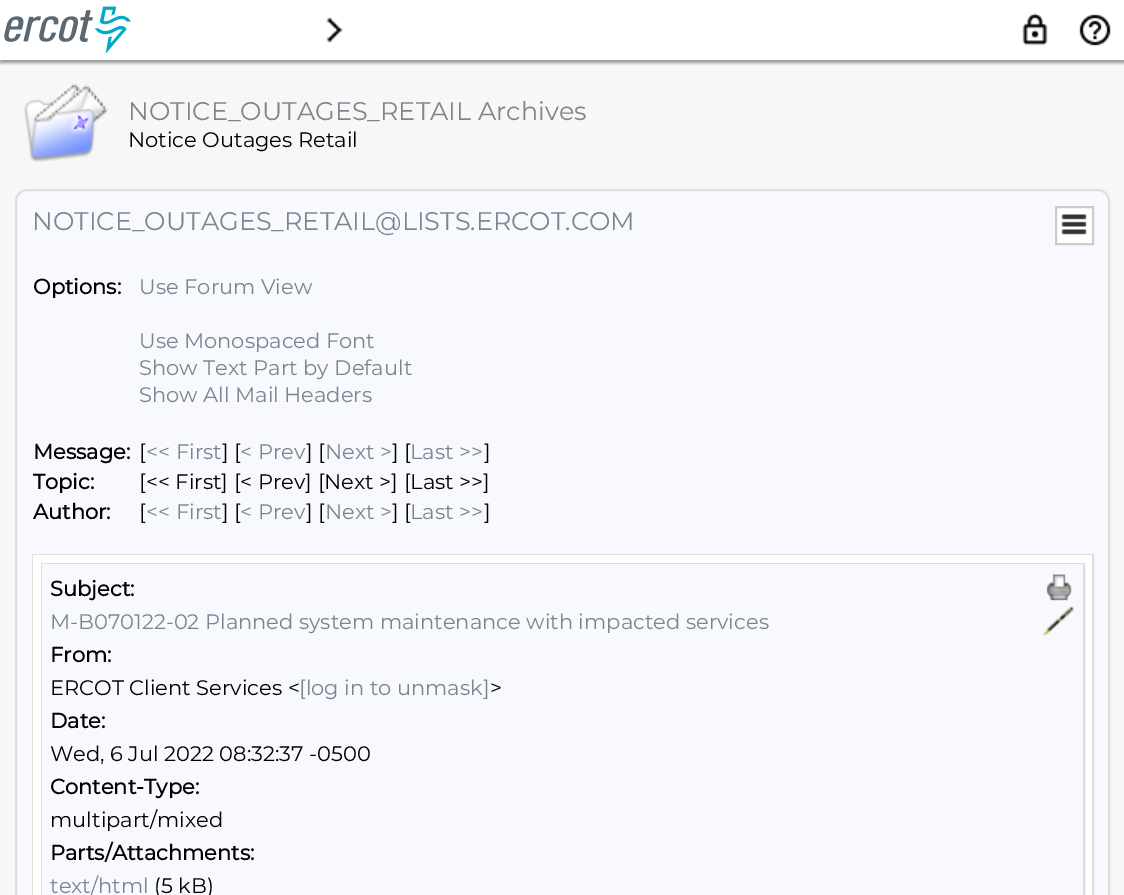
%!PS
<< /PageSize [1124 895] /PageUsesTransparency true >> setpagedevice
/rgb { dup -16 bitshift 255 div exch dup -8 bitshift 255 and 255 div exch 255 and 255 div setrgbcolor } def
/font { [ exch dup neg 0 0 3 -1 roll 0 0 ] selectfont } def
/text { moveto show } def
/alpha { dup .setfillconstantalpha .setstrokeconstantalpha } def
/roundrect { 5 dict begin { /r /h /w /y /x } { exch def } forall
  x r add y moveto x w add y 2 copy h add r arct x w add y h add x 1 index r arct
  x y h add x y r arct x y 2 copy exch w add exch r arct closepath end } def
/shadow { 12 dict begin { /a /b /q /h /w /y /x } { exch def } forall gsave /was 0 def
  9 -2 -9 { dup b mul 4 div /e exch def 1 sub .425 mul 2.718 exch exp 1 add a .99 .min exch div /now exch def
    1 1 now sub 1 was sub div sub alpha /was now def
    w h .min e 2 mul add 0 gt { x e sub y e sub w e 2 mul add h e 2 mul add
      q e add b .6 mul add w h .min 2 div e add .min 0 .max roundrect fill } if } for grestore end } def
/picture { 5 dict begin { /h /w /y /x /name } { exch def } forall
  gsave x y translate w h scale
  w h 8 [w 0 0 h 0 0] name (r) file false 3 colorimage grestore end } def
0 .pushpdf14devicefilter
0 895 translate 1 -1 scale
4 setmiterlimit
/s1 { /Montserrat-Thin 25.5 font 16#7C858D rgb } def
/s2 { /Montserrat-Thin 21 font 16#000000 rgb } def
/s3 { /Montserrat-Bold 21 font 16#000000 rgb } def
/s4 { /Montserrat-Thin 21 font 16#7C858D rgb } def
16#F7F7F7 rgb
0 0 1124 895 rectfill
16#999999 rgb
0 3 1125 60 0 1.5 1 shadow
16#FFFFFF rgb
0 0 1124 60 rectfill
(pic1.raw) 4 6 127 48 picture
(pic2.raw) 326 17 17 26 picture
(pic3.raw) 1022 13 26 33 picture
(pic4.raw) 1079 14 32 32 picture
(pic5.raw) 24 83 84 79 picture
s1
(NOTICE_OUTAGES_RETAIL Archives) 128 120 text
s2
(Notice Outages Retail) 128 147 text
16#F7F9FE rgb
16 190 1093 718 11 roundrect gsave fill grestore
16#DEDEDE rgb
2 setlinewidth
stroke
s1
(NOTICE_OUTAGES_RETAIL@LISTS.ERCOT.COM) 32 230 text
16#FFFFFF rgb
1056 207 moveto 1093 207 lineto 1093 244 lineto 1056 244 lineto closepath gsave fill grestore
16#CCCCCC rgb
stroke
(pic6.raw) 1061 214 26 21 picture
s3
(Options:) 33 294 text
s4
(Use Forum View) 139 294 text
(Use Monospaced Font) 139 348 text
(Show Text Part by Default) 139 375 text
(Show All Mail Headers) 139 402 text
s3
(Message:) 33 459 text
s2
([) 139 459 text
s4
(<< First) 146 459 text
s2
(] [) 222 459 text
s4
(< Prev) 240 459 text
s2
(] [) 306 459 text
s4
(Next >) 325 459 text
s2
(] [) 392 459 text
s4
(Last >>) 410 459 text
s2
(]) 484 459 text
s3
(Topic:) 33 489 text
s2
([<< First] [< Prev] [Next >] [Last >>]) 139 489 text
s3
(Author:) 33 519 text
s2
([) 139 519 text
s4
(<< First) 146 519 text
s2
(] [) 222 519 text
s4
(< Prev) 240 519 text
s2
(] [) 306 519 text
s4
(Next >) 325 519 text
s2
(] [) 392 519 text
s4
(Last >>) 410 519 text
s2
(]) 484 519 text
16#DEDEDE rgb
33 555 1060 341 rectstroke
16#FFFFFF rgb
33 555 1059 340 rectfill
16#DEDEDE rgb
42 564 1042 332 rectstroke
16#F7F9FE rgb
42 564 1041 331 rectfill
s3
(Subject:) 50 596 text
s4
(M-B070122-02 Planned system maintenance with impacted services) 50 629 text
s3
(From:) 50 662 text
s2
(ERCOT Client Services <) 50 695 text
s4
([log in to unmask]) 299 695 text
s2
(>) 490 695 text
s3
(Date:) 50 728 text
s2
(Wed, 6 Jul 2022 08:32:37 -0500) 50 761 text
s3
(Content-Type:) 50 794 text
s2
(multipart/mixed) 50 827 text
s3
(Parts/Attachments:) 50 860 text
s4
(text/html) 50 893 text
s2
(\(5 kB\)) 154 893 text
(pic7.raw) 1046 574 26 27 picture
(pic8.raw) 1042 606 33 31 picture
.poppdf14devicefilter showpage
